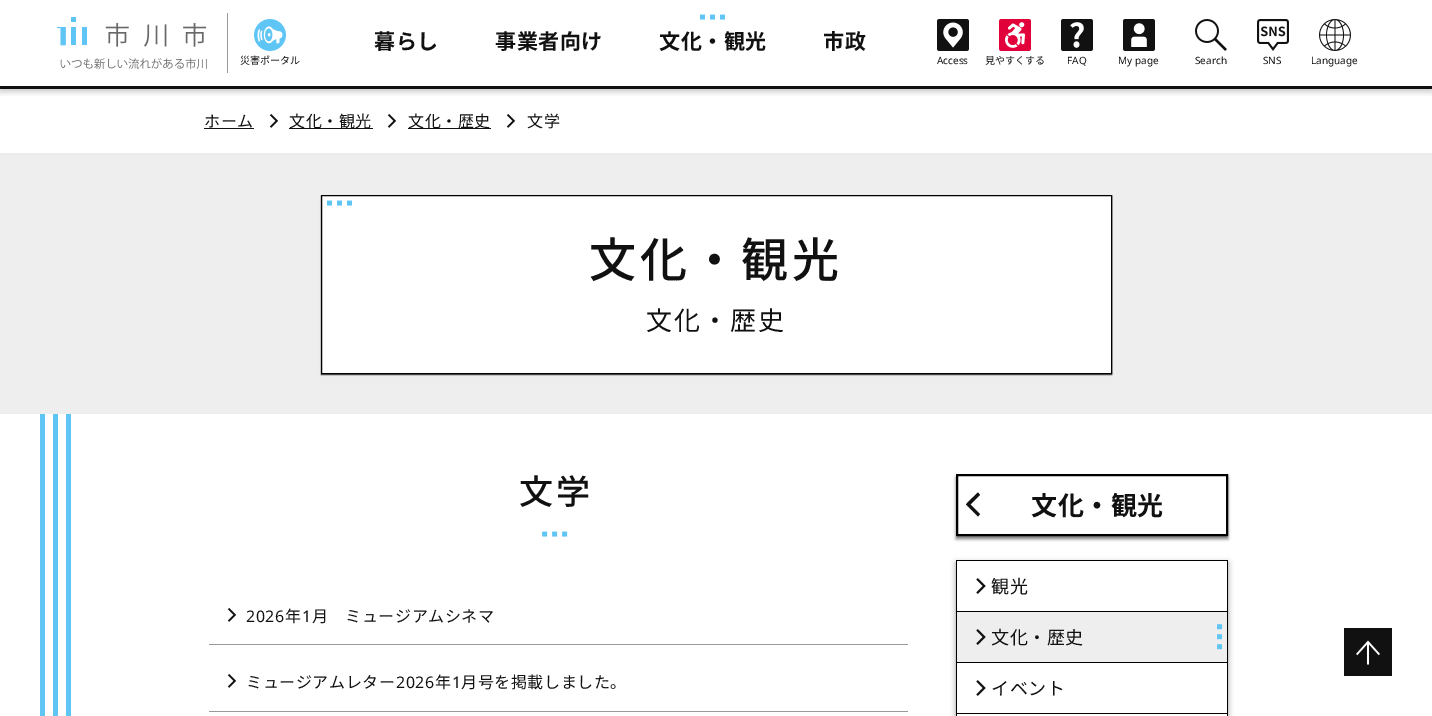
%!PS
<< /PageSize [1432 716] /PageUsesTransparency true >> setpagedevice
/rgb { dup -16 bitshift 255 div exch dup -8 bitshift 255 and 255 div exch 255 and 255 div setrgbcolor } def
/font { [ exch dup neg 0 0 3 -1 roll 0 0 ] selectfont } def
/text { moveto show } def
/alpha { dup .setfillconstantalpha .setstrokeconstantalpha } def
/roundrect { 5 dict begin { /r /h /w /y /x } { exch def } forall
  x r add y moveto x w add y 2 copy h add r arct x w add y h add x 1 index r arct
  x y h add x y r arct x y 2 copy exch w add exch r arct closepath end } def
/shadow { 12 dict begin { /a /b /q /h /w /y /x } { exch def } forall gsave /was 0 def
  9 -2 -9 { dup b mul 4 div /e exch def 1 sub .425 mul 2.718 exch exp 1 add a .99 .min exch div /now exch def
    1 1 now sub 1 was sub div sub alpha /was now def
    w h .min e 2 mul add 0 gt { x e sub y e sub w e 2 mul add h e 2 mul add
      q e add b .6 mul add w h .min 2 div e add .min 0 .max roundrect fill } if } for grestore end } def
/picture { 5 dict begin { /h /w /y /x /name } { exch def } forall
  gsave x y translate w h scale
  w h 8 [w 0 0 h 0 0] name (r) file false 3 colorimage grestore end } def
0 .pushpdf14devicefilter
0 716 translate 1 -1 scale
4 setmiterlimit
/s1 { /NotoSansCJKJP-Regular 10 font 16#111111 rgb } def
/s2 { /NotoSans-Regular 10 font 16#111111 rgb } def
16#FFFFFF rgb
0 0 1432 716 rectfill
gsave
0 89 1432 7 rectclip
16#000000 rgb
0 3 1432 89 0 3 0.2 shadow
grestore
16#111111 rgb
0 86 1432 3 rectfill
(pic1.raw) 57 17 150 52 picture
16#999999 rgb
227 13 1 60 rectfill
(pic2.raw) 254 19 32 32 picture
s1
(災害ポータル) 240 64 text
/NotoSansCJKJP-Bold 21 font
374 49 moveto 0.6 0 (暮らし) ashow
495 49 moveto 0.6 0 (事業者向け) ashow
(pic3.raw) 700 14 25 6 picture
659 49 moveto 0.6 0 (文化・観光) ashow
823 49 moveto 0.6 0 (市政) ashow
(pic4.raw) 937 19 32 32 picture
s2
(Access) 937 64 text
(pic5.raw) 999 19 32 32 picture
s1
(見やすくする) 985 64 text
(pic6.raw) 1061 19 32 32 picture
s2
(FAQ) 1067 64 text
(pic7.raw) 1123 19 32 32 picture
(My page) 1118 64 text
(pic8.raw) 1195 19 32 32 picture
(Search) 1195 64 text
(pic9.raw) 1257 19 32 32 picture
(SNS) 1263 64 text
(pic10.raw) 1319 19 32 32 picture
(Language) 1311 64 text
16#EEEEEE rgb
0 153 1432 1 rectfill
/NotoSansCJKJP-Regular 16 font
16#111111 rgb
204 127 moveto 0.6 0 (ホーム) ashow
204 128 50 1 rectfill
(pic11.raw) 269 114 10 14 picture
289 128 84 1 rectfill
289 127 moveto 0.6 0 (文化・観光) ashow
(pic11.raw) 387 114 10 14 picture
408 128 83 1 rectfill
408 127 moveto 0.6 0 (文化・歴史) ashow
(pic11.raw) 506 114 10 14 picture
527 127 moveto 0.6 0 (文学) ashow
16#EEEEEE rgb
0 155 1432 259 rectfill
16#E9E9E9 rgb
0 154 1432 1 rectfill
16#000000 rgb
321 196 791 179 0 0.5 0.7 shadow
16#FFFFFF rgb
321.5 195.5 moveto 1111.5 195.5 lineto 1111.5 373.5 lineto 321.5 373.5 lineto closepath gsave fill grestore
16#000000 rgb
stroke
(pic3.raw) 327 200 25 6 picture
/NotoSansCJKJP-Medium 47 font
16#111111 rgb
589 277 moveto 3.75 0 (文化・観光) ashow
/NotoSansCJKJP-Regular 26 font
646 330 moveto 2 0 (文化・歴史) ashow
(pic12.raw) 40 414 31 302 picture
/NotoSansCJKJP-Medium 34 font
519 504 moveto 3 0 (文学) ashow
(pic13.raw) 542 531 26 6 picture
16#999999 rgb
209 644 699 1 rectfill
(pic11.raw) 227 608 10 14 picture
/NotoSans-Regular 16 font
16#111111 rgb
246 622 moveto 0.6 0 (2026) ashow
/NotoSansCJKJP-Regular 16 font
285 622 moveto 0.6 0 (年) ashow
/NotoSans-Regular 16 font
302 622 moveto 0.6 0 (1) ashow
/NotoSansCJKJP-Regular 16 font
312 622 moveto 0.6 0 (月　ミュージアムシネマ) ashow
16#999999 rgb
209 711 699 1 rectfill
(pic11.raw) 227 674 10 14 picture
16#111111 rgb
246 688 moveto 0.6 0 (ミュージアムレター) ashow
/NotoSans-Regular 16 font
396 688 moveto 0.6 0 (2026) ashow
/NotoSansCJKJP-Regular 16 font
435 688 moveto 0.6 0 (年) ashow
/NotoSans-Regular 16 font
452 688 moveto 0.6 0 (1) ashow
/NotoSansCJKJP-Regular 16 font
461 688 moveto 0.6 0 (月号を掲載しました。) ashow
gsave
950 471 moveto 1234 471 lineto 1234 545 lineto 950 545 lineto closepath 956 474 moveto 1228 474 lineto 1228 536 lineto 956 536 lineto closepath eoclip newpath
16#000000 rgb
956 477 272 62 0 1.5 0.5 shadow
grestore
16#000000 rgb
2 setlinewidth
957 475 270 60 rectstroke
16#111111 rgb
968 502 moveto 978 492.5 lineto 980 495 lineto 970.5 504.5 lineto 980 514 lineto 978 516.5 lineto 966 504.5 lineto closepath fill
/NotoSansCJKJP-Bold 26 font
1031 515 moveto 0.6 0 (文化・観光) ashow
gsave
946 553 moveto 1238 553 lineto 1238 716 lineto 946 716 lineto closepath 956 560 moveto 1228 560 lineto 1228 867 lineto 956 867 lineto closepath eoclip newpath
16#000000 rgb
956 563 272 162 0 3 0.4 shadow
grestore
16#000000 rgb
956 560 272 1 rectfill
1227 560 1 156 rectfill
956 560 1 156 rectfill
957 611 270 1 rectfill
(pic14.raw) 976 578 10 16 picture
/NotoSansCJKJP-Regular 18 font
16#111111 rgb
991 593 moveto 0.6 0 (観光) ashow
16#000000 rgb
957 662 270 1 rectfill
16#EEEEEE rgb
957 612 270 50 rectfill
(pic15.raw) 976 629 10 16 picture
16#111111 rgb
991 644 moveto 0.6 0 (文化・歴史) ashow
(pic16.raw) 1217 624 5 26 picture
16#000000 rgb
957 713 270 1 rectfill
(pic14.raw) 976 680 10 16 picture
16#111111 rgb
991 695 moveto 0.6 0 (イベント) ashow
1344 628 48 48 rectfill
(pic17.raw) 1356 640 24 25 picture
.poppdf14devicefilter showpage
